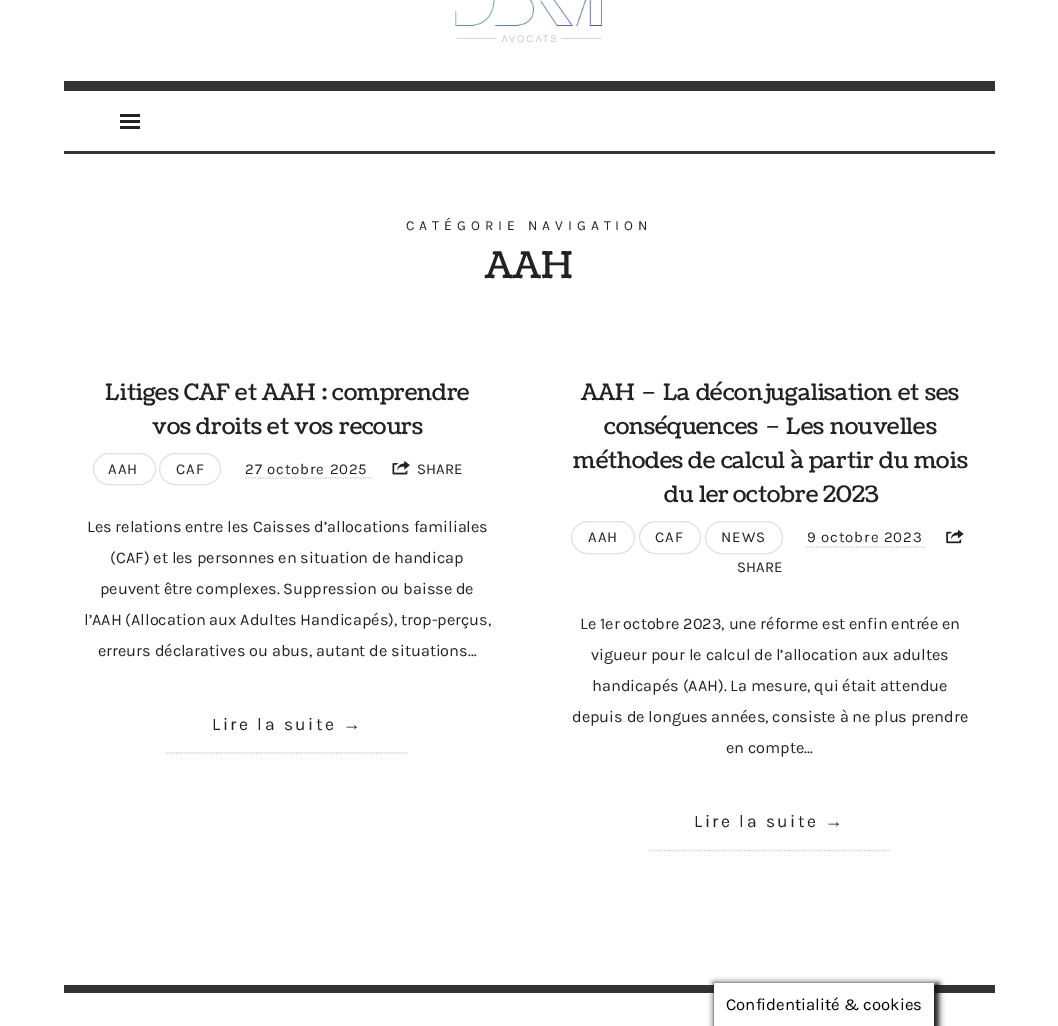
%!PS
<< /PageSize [1058 1026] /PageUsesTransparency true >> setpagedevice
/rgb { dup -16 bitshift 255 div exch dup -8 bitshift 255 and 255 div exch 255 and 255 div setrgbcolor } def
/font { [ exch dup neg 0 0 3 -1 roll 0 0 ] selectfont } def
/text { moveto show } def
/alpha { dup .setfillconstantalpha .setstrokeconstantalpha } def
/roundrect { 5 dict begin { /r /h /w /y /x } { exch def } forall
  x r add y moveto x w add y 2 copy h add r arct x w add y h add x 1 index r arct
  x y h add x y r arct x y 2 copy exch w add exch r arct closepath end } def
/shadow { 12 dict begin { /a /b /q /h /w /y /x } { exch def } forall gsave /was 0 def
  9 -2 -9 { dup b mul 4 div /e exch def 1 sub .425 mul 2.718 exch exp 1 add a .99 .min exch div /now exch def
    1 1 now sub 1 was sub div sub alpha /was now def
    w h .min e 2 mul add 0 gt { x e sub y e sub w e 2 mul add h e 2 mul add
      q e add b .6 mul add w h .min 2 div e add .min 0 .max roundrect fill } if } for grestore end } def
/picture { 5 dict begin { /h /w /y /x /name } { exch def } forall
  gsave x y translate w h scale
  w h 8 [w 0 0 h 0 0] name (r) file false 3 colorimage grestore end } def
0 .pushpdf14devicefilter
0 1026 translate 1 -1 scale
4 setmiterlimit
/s1 { /Coustard-Regular 37 font 16#222222 rgb } def
/s2 { /Coustard-Regular 22.75 font 16#222222 rgb } def
/s3 { /Karla-Regular 15 font 16#222222 rgb } def
/s4 { /Karla-Regular 16.25 font 16#222222 rgb } def
/s5 { /Karla-Regular 16.75 font 16#000000 rgb } def
16#FFFFFF rgb
0 0 1058 1026 rectfill
(pic1.raw) 454 0 150 43 picture
16#333333 rgb
64 81 931 10 rectfill
64 151 931 3 rectfill
16#222222 rgb
120 120 20 3 rectfill
120 114 20 3 rectfill
120 126 20 3 rectfill
/Karla-Regular 13.75 font
406 230 moveto 5 0 (CATÉGORIE NAVIGATION) ashow
s1
(AAH) 485 278 text
s2
(Litiges CAF et AAH : comprendre) 105 400 text
(vos droits et vos recours) 152 434 text
16#E0E0E0 rgb
93.5 453.5 62 31 15.5 roundrect stroke
/Karla-Regular 15 font
16#222222 rgb
108 474 moveto 1 0 (AAH) ashow
16#E0E0E0 rgb
159.5 453.5 61 31 15.5 roundrect stroke
16#222222 rgb
176 474 moveto 1 0 (CAF) ashow
245 474 moveto 0.9 0 (27 octobre 2025) ashow
16#CCCCCC rgb
1.2 setlinewidth
[1.25 1.25] 0 setdash
245 478 moveto 372.5 478 lineto stroke
(pic2.raw) 392 460 18 15 picture
s3
(SHARE) 417 474 text
s4
(Les relations entre les Caisses d’allocations familiales) 87 532 text
(\(CAF\) et les personnes en situation de handicap) 110 563 text
(peuvent être complexes. Suppression ou baisse de) 100 594 text
(l’AAH \(Allocation aux Adultes Handicapés\), trop-perçus,) 84 625 text
(erreurs déclaratives ou abus, autant de situations…) 98 656 text
16#CCCCCC rgb
166 753 moveto 407.5 753 lineto stroke
/Karla-Regular 17.5 font
16#222222 rgb
212 730 moveto 2.5 0 (Lire la suite) ashow
/LiberationSerif-Regular 17.5 font
343 730 moveto 2.5 0 (→) ashow
s2
(AAH – La déconjugalisation et ses) 581 400 text
(conséquences – Les nouvelles) 604 434 text
(méthodes de calcul à partir du mois) 573 468 text
(du 1er) 664 502 text
(octobre 2023) 733 502 text
16#E0E0E0 rgb
1 setlinewidth
[] 0 setdash
571.5 521.5 63 32 16 roundrect stroke
/Karla-Regular 15 font
16#222222 rgb
588 542 moveto 1 0 (AAH) ashow
16#E0E0E0 rgb
639.5 521.5 61 32 16 roundrect stroke
16#222222 rgb
655 542 moveto 1 0 (CAF) ashow
16#E0E0E0 rgb
705.5 521.5 77 32 16 roundrect stroke
16#222222 rgb
721 542 moveto 1 0 (NEWS) ashow
807 542 moveto 0.9 0 (9 octobre 2023) ashow
16#CCCCCC rgb
1.2 setlinewidth
[1.25 1.25] 0 setdash
806 547 moveto 926 547 lineto stroke
(pic3.raw) 946 529 18 15 picture
s3
(SHARE) 737 572 text
s4
(Le 1er octobre 2023, une réforme est enfin entrée en) 580 629 text
(vigueur pour le calcul de l’allocation aux adultes) 591 660 text
(handicapés \(AAH\). La mesure, qui était attendue) 592 691 text
(depuis de longues années, consiste à ne plus prendre) 572 722 text
(en compte…) 726 753 text
16#CCCCCC rgb
649 850.5 moveto 890 850.5 lineto stroke
/Karla-Regular 17.5 font
16#222222 rgb
694 827 moveto 2.5 0 (Lire la suite) ashow
/LiberationSerif-Regular 17.5 font
825 827 moveto 2.5 0 (→) ashow
16#333333 rgb
64 985 931 8 rectfill
16#161616 rgb
714 983 225 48 0 3 1 shadow
16#FFFFFF rgb
714 983 220 43 rectfill
s5
(Confidentialité & cookies) 726 1010 text
.poppdf14devicefilter showpage
